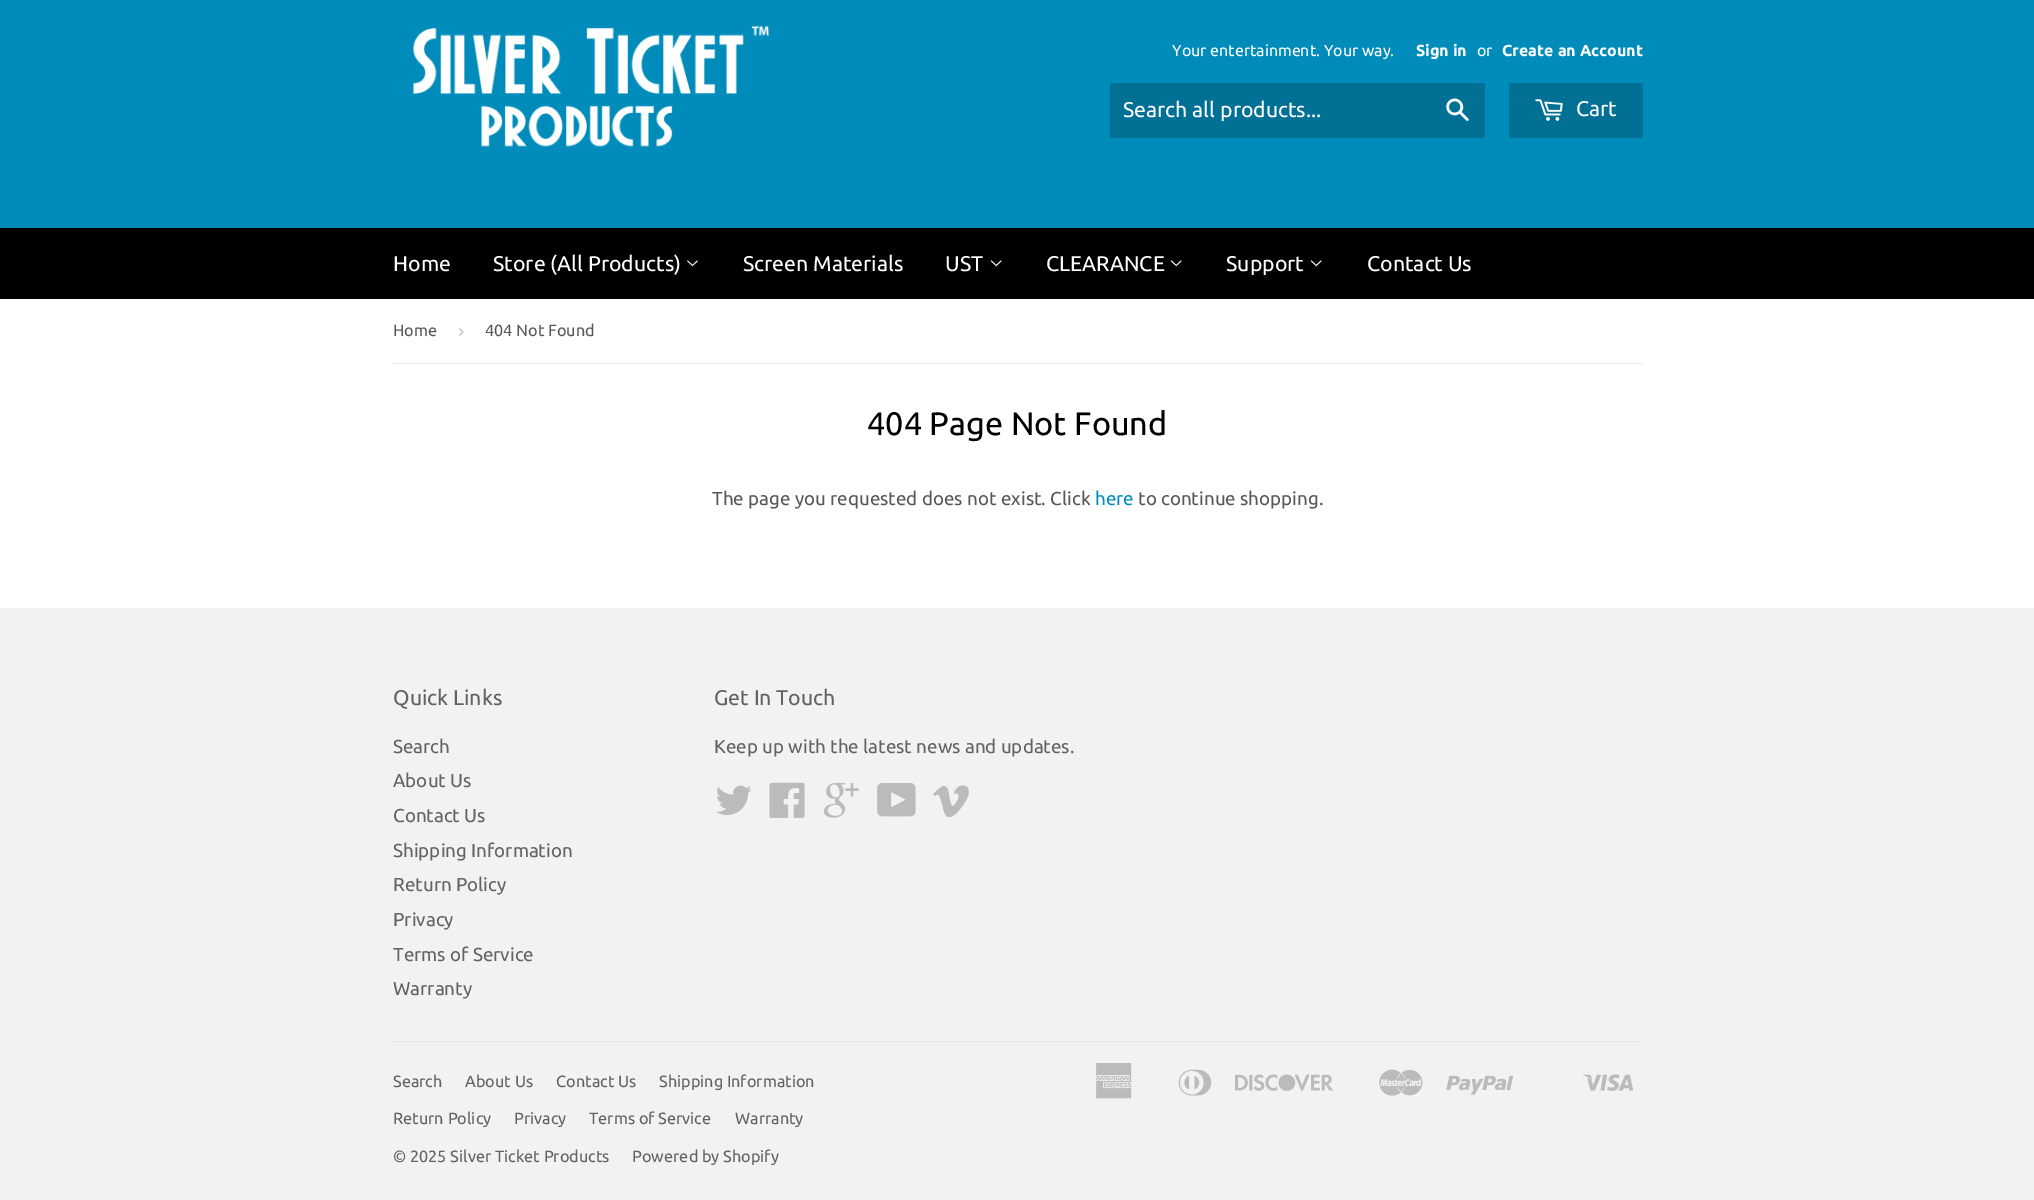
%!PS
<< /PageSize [2034 1200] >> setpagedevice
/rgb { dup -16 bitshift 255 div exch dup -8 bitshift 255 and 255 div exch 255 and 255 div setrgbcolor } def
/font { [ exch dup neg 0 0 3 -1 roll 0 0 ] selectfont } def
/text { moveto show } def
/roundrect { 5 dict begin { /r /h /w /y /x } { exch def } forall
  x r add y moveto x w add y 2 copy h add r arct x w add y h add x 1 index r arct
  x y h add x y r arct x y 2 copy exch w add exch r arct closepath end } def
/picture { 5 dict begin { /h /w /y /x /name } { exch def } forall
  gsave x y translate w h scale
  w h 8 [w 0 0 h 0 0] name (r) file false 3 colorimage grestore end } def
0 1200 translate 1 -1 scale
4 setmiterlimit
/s1 { /Ubuntu-Regular 16 font 16#FFFFFF rgb } def
/s2 { /Ubuntu-Bold 16 font 16#FFFFFF rgb } def
/s3 { /Ubuntu-Regular 21.25 font 16#FFFFFF rgb } def
/s4 { /Ubuntu-Regular 16.25 font 16#585858 rgb } def
/s5 { /LiberationSans-Regular 18.75 font 16#BBBBBB rgb } def
/s6 { /Ubuntu-Regular 32.5 font 16#000000 rgb } def
/s7 { /Ubuntu-Regular 18.75 font 16#585858 rgb } def
/s8 { /Ubuntu-Regular 18.75 font 16#008CBA rgb } def
/s9 { /Ubuntu-Regular 21.25 font 16#636363 rgb } def
/s10 { /Ubuntu-Regular 18.75 font 16#636363 rgb } def
/s11 { /Ubuntu-Regular 16.25 font 16#636363 rgb } def
16#FFFFFF rgb
0 0 2034 1200 rectfill
16#008CBA rgb
0 0 2034 228 rectfill
(pic1.raw) 412 26 357 121 picture
s1
(Your entertainment. Your way.) 1172 56 text
s2
(Sign in) 1416 56 text
s1
(or) 1477 56 text
s2
(Create an Account) 1502 56 text
16#007095 rgb
1110 83 375 55 2.5 roundrect fill
s3
(Search all products...) 1123 117 text
(pic2.raw) 1446 98 23 23 picture
16#007095 rgb
1509 83 134 55 2.5 roundrect fill
(pic3.raw) 1535 99 28 22 picture
s3
(Cart) 1576 116 text
16#000000 rgb
0 228 2034 71 rectfill
s3
(Home) 393 271 text
(Store \(All Products\)) 493 271 text
(pic4.raw) 687 260 11 7 picture
(Screen Materials) 743 271 text
(UST) 945 271 text
(pic5.raw) 990 260 12 7 picture
(CLEARANCE) 1046 271 text
(pic5.raw) 1170 260 12 7 picture
(Support) 1226 271 text
(pic5.raw) 1310 260 12 7 picture
(Contact Us) 1367 271 text
16#ECECEC rgb
393 363 1250 1 rectfill
s4
(Home) 393 336 text
s5
(›) 458 337 text
s4
(404 Not Found) 485 336 text
s6
(404 Page Not Found) 867 435 text
s7
(The page you requested does not exist. Click) 712 505 text
s8
(here) 1095 505 text
s7
(to continue shopping.) 1138 505 text
16#F2F2F2 rgb
0 608 2034 592 rectfill
s9
(Quick Links) 393 705 text
s10
(Search) 393 753 text
(About Us) 393 787 text
(Contact Us) 393 822 text
(Shipping Information) 393 857 text
(Return Policy) 393 891 text
(Privacy) 393 926 text
(Terms of Service) 393 961 text
(Warranty) 393 995 text
s9
(Get In Touch) 714 705 text
s10
(Keep up with the latest news and updates.) 714 753 text
(pic6.raw) 716 785 36 30 picture
(pic7.raw) 769 782 36 36 picture
(pic8.raw) 823 783 36 35 picture
(pic9.raw) 877 783 39 34 picture
(pic10.raw) 933 785 36 33 picture
16#E5E5E5 rgb
393 1041 1250 1 rectfill
s11
(Search) 393 1087 text
(About Us) 465 1087 text
(Contact Us) 556 1087 text
(Shipping Information) 659 1087 text
(Return Policy) 393 1124 text
(Privacy) 514 1124 text
(Terms of Service) 589 1124 text
(Warranty) 735 1124 text
(© 2025 Silver Ticket Products) 393 1162 text
(Powered by Shopify) 632 1162 text
(pic11.raw) 1096 1063 36 36 picture
(pic12.raw) 1178 1069 34 27 picture
(pic13.raw) 1235 1074 98 17 picture
(pic14.raw) 1379 1069 44 27 picture
(pic15.raw) 1446 1075 67 20 picture
(pic16.raw) 1582 1074 52 17 picture
showpage
